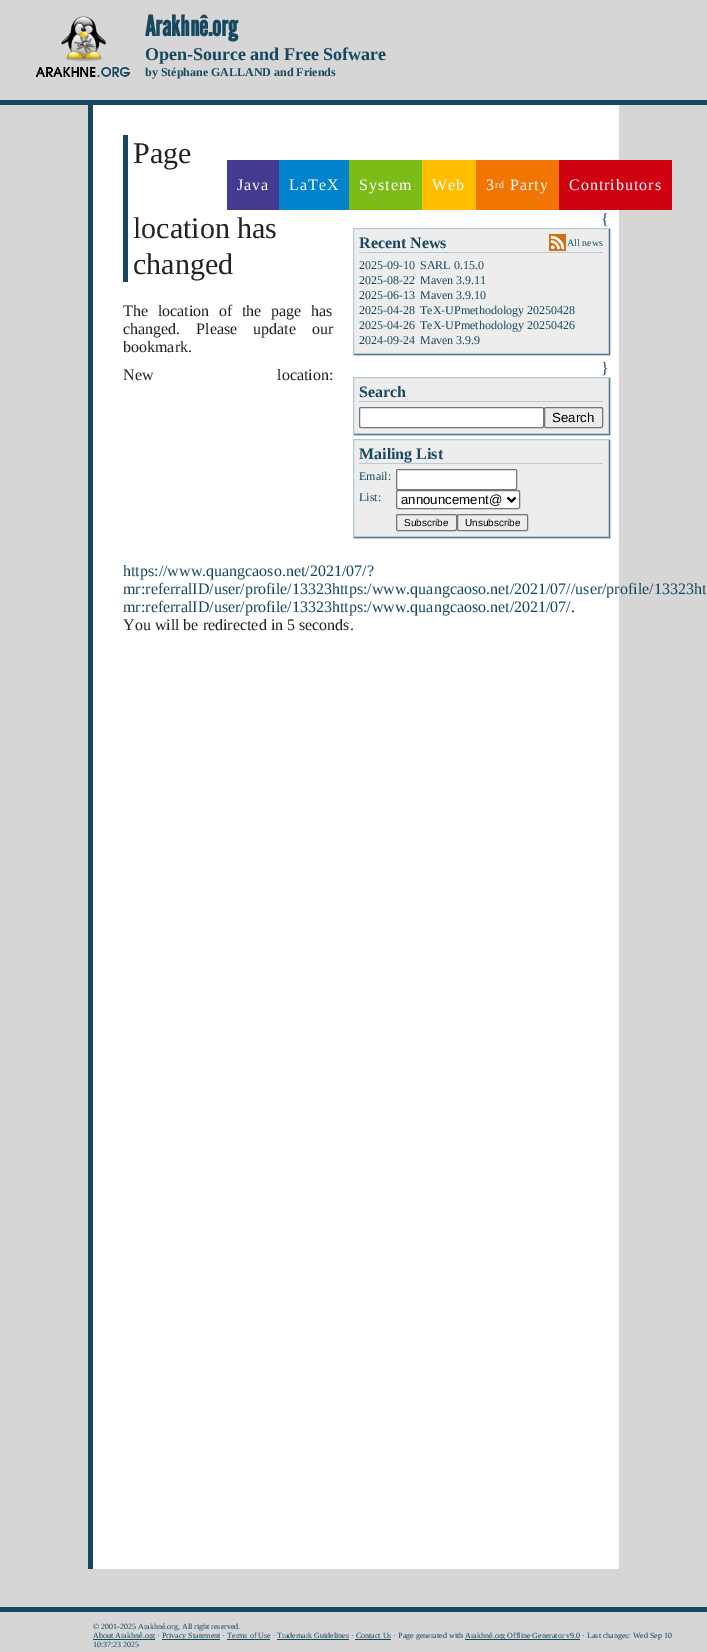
%!PS
<< /PageSize [707 1652] /PageUsesTransparency true >> setpagedevice
/rgb { dup -16 bitshift 255 div exch dup -8 bitshift 255 and 255 div exch 255 and 255 div setrgbcolor } def
/font { [ exch dup neg 0 0 3 -1 roll 0 0 ] selectfont } def
/text { moveto show } def
/alpha { dup .setfillconstantalpha .setstrokeconstantalpha } def
/roundrect { 5 dict begin { /r /h /w /y /x } { exch def } forall
  x r add y moveto x w add y 2 copy h add r arct x w add y h add x 1 index r arct
  x y h add x y r arct x y 2 copy exch w add exch r arct closepath end } def
/shadow { 12 dict begin { /a /b /q /h /w /y /x } { exch def } forall gsave /was 0 def
  9 -2 -9 { dup b mul 4 div /e exch def 1 sub .425 mul 2.718 exch exp 1 add a .99 .min exch div /now exch def
    1 1 now sub 1 was sub div sub alpha /was now def
    w h .min e 2 mul add 0 gt { x e sub y e sub w e 2 mul add h e 2 mul add
      q e add b .6 mul add w h .min 2 div e add .min 0 .max roundrect fill } if } for grestore end } def
/picture { 5 dict begin { /h /w /y /x /name } { exch def } forall
  gsave x y translate w h scale
  w h 8 [w 0 0 h 0 0] name (r) file false 3 colorimage grestore end } def
0 .pushpdf14devicefilter
0 1652 translate 1 -1 scale
4 setmiterlimit
/s1 { /LeagueGothic-Bold 28 font 16#184860 rgb } def
/s2 { /LiberationSerif-Bold 18 font 16#184860 rgb } def
/s3 { /LiberationSerif-Bold 12 font 16#184860 rgb } def
/s4 { /LiberationSerif-Regular 30 font 16#212222 rgb } def
/s5 { /LiberationSerif-Regular 16 font 16#184860 rgb } def
/s6 { /LiberationSerif-Bold 16 font 16#184860 rgb } def
/s7 { /LiberationSerif-Regular 10 font 16#184860 rgb } def
/s8 { /LiberationSerif-Regular 12 font 16#184860 rgb } def
/s9 { /LiberationSans-Regular 13.25 font 16#000000 rgb } def
/s10 { /LiberationSans-Regular 10 font 16#000000 rgb } def
/s11 { /LiberationSerif-Regular 16 font 16#212222 rgb } def
/s12 { /LiberationSerif-Regular 8 font 16#184860 rgb } def
16#D6D6D6 rgb
0 0 707 1652 rectfill
16#184860 rgb
0 100 707 5 rectfill
(pic1.raw) 35 16 96 61 picture
s1
(Arakhnê.org) 145 36 text
s2
(Open-Source and Free Sofware) 145 60 text
s3
(by Stéphane GALLAND and Friends) 145 76 text
16#FFFFFF rgb
93 105 526 1464 rectfill
16#433B8F rgb
227 160 52 50 rectfill
/LiberationSerif-Regular 16 font
16#FFFFFF rgb
237 190 moveto 1 0 (Java) ashow
16#0184CD rgb
279 160 70 50 rectfill
16#FFFFFF rgb
289 190 moveto 1 0 (LaTeX) ashow
16#7CBC19 rgb
349 160 73 50 rectfill
16#FFFFFF rgb
359 190 moveto 1 0 (System) ashow
16#FFBC00 rgb
422 160 54 50 rectfill
16#FFFFFF rgb
432 190 moveto 1 0 (Web) ashow
16#F07502 rgb
476 160 83 50 rectfill
16#FFFFFF rgb
486 190 moveto 1 0 (3) ashow
/LiberationSerif-Regular 10 font
495 188 moveto 1 0 (rd) ashow
/LiberationSerif-Regular 16 font
510 190 moveto 1 0 (Party) ashow
16#D00110 rgb
559 160 113 50 rectfill
16#FFFFFF rgb
569 190 moveto 1 0 (Contributors) ashow
16#184860 rgb
88 105 5 1464 rectfill
123 135 5 147 rectfill
s4
(Page) 133 163 text
(location has) 133 238 text
(changed) 133 274 text
16#184860 rgb
354 229 256 126 0 0.5 1 shadow
s5
({) 601 224 text
16#EDEDED rgb
353.5 228.5 moveto 608.5 228.5 lineto 608.5 353.5 lineto 353.5 353.5 lineto closepath gsave fill grestore
16#B4CBD7 rgb
stroke
359 252 244 1 rectfill
s6
(Recent News) 359 248 text
(pic2.raw) 549 234 17 17 picture
s7
(All news) 567 246 text
s8
(2025-09-10) 359 269 text
(SARL 0.15.0) 420 269 text
(2025-08-22) 359 284 text
(Maven 3.9.11) 420 284 text
(2025-06-13) 359 299 text
(Maven 3.9.10) 420 299 text
(2025-04-28) 359 314 text
(TeX-UPmethodology 20250428) 420 314 text
(2025-04-26) 359 329 text
(TeX-UPmethodology 20250426) 420 329 text
(2024-09-24) 359 344 text
(Maven 3.9.9) 420 344 text
354 378 256 57 0 0.5 1 shadow
s5
(}) 601 373 text
16#EDEDED rgb
353.5 377.5 moveto 608.5 377.5 lineto 608.5 433.5 lineto 353.5 433.5 lineto closepath gsave fill grestore
16#B4CBD7 rgb
stroke
359 401 244 1 rectfill
s6
(Search) 359 397 text
16#FFFFFF rgb
359.5 407.5 184 20 1.5 roundrect gsave fill grestore
16#767676 rgb
stroke
544.5 407.5 58 20 1.5 roundrect stroke
s9
(Search) 552 422 text
16#184860 rgb
354 440 256 98 0 0.5 1 shadow
16#EDEDED rgb
353.5 439.5 moveto 608.5 439.5 lineto 608.5 536.5 lineto 353.5 536.5 lineto closepath gsave fill grestore
16#B4CBD7 rgb
stroke
359 463 244 1 rectfill
s6
(Mailing List) 359 459 text
s8
(Email:) 359 480 text
16#FFFFFF rgb
396.5 469.5 120 20 1.5 roundrect gsave fill grestore
16#767676 rgb
stroke
s8
(List:) 359 501 text
16#FFFFFF rgb
396.5 490.5 123 18 1.5 roundrect gsave fill grestore
16#767676 rgb
stroke
16#000000 rgb
2 setlinewidth
507.5 497.5 moveto 511.5 501.5 lineto 515.5 497.5 lineto stroke
s9
(announcement@) 401 504 text
16#767676 rgb
1 setlinewidth
396.5 514.5 60 16 1.5 roundrect stroke
s10
(Subscribe) 404 526 text
16#767676 rgb
457.5 514.5 70 16 1.5 roundrect stroke
s10
(Unsubscribe) 465 526 text
/LiberationSerif-Regular 16 font
16#212222 rgb
123 316 moveto 5.75 0 32 (The location of the page has) widthshow
123 334 moveto 12 0 32 (changed. Please update our) widthshow
(bookmark.) 123 352 text
123 380 moveto 120 0 32 (New location:) widthshow
s5
(https://www.quangcaoso.net/2021/07/?) 123 576 text
(mr:referralID/user/profile/13323https:/www.quangcaoso.net/2021/07//user/profile/13323ht) 123 594 text
(mr:referralID/user/profile/13323https:/www.quangcaoso.net/2021/07/) 123 612 text
s11
(.) 571 612 text
(You will be redirected in 5 seconds.) 123 630 text
16#184860 rgb
0 1607 707 5 rectfill
s12
(© 2001-2025 Arakhnê.org, All right reserved.) 93 1629 text
93 1639 62 1 rectfill
(About Arakhnê.org ·) 93 1638 text
162 1639 58 1 rectfill
(Privacy Statement · Terms of Use · Trademark Guidelines · Contact Us · Page generated with) 162 1638 text
465 1639 115 1 rectfill
(Arakhnê.org Offline Generator v9.0 · Last changes: Wed Sep 10) 465 1638 text
227 1639 43 1 rectfill
277 1639 72 1 rectfill
355 1639 36 1 rectfill
(10:37:23 2025) 93 1647 text
.poppdf14devicefilter showpage
